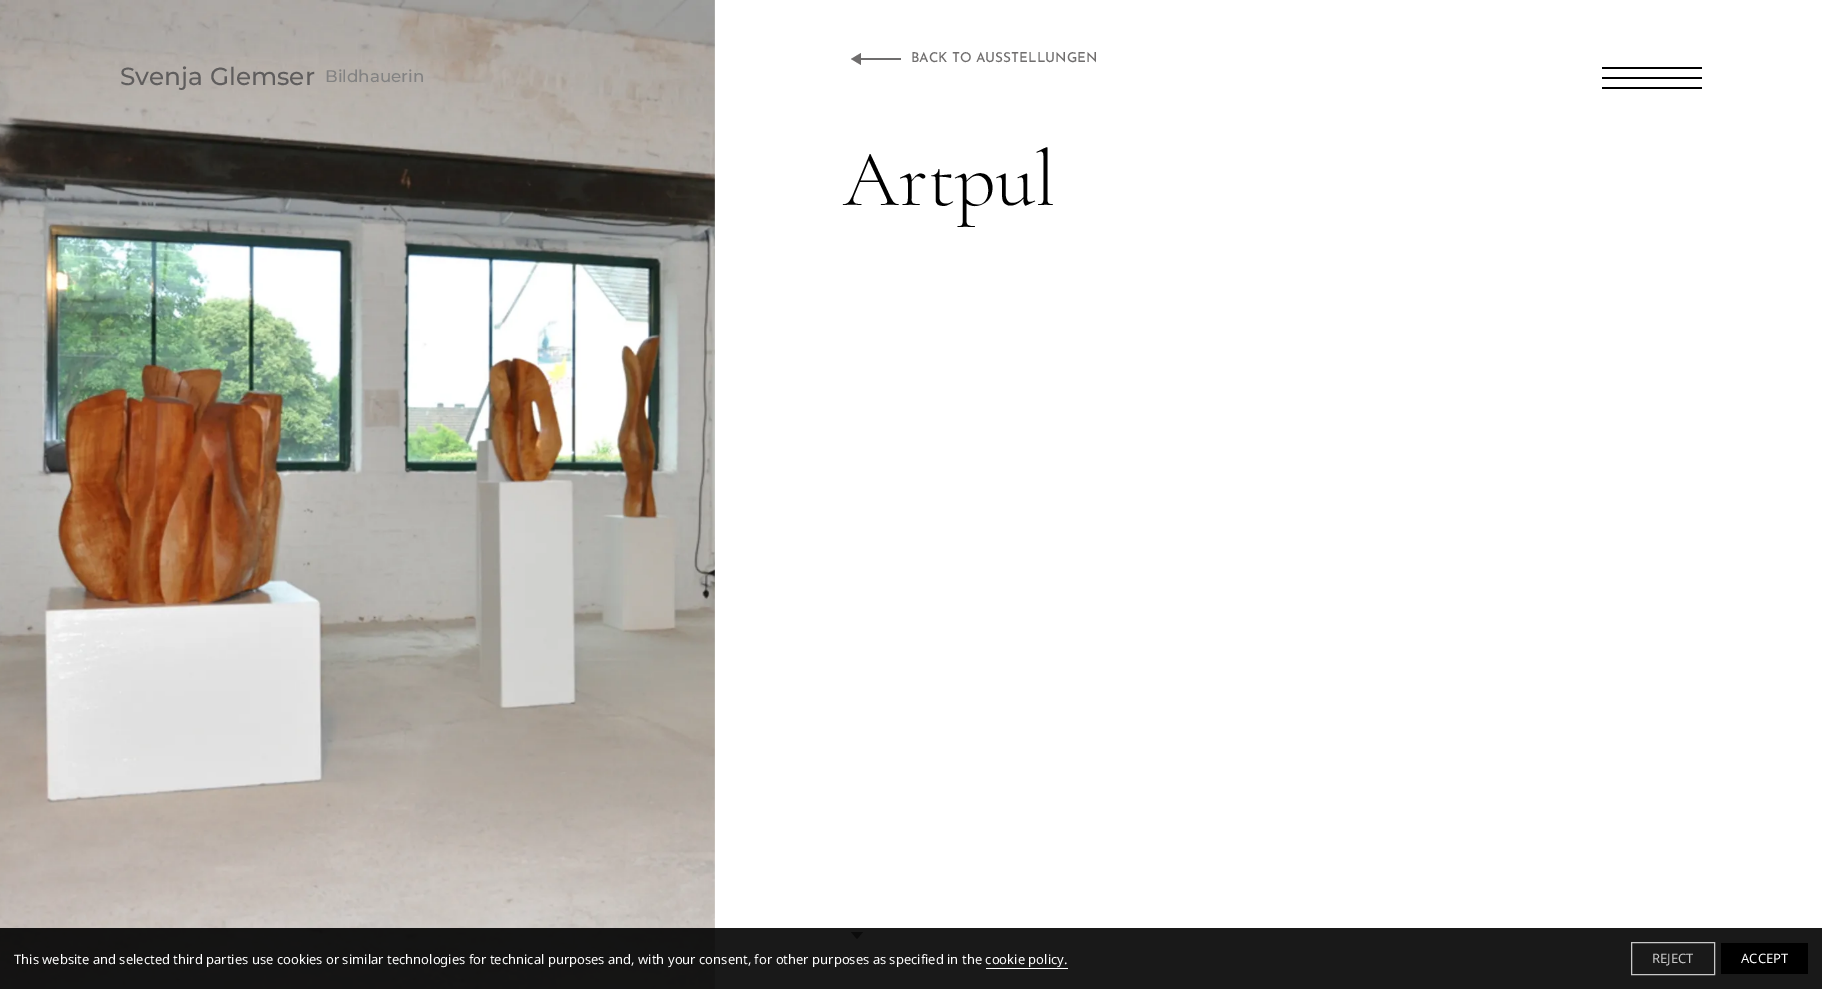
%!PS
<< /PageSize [1822 989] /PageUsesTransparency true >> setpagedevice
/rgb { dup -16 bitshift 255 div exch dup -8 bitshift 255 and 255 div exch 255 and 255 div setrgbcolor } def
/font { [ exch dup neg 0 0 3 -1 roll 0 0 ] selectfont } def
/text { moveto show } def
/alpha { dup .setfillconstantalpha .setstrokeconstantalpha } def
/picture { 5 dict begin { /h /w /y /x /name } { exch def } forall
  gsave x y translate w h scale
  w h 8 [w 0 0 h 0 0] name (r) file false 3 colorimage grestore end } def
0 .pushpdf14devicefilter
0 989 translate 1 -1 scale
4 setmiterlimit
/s1 { /Montserrat-Medium 24.75 font 16#5F5D5D rgb } def
/s2 { /Montserrat-Medium 16.75 font 16#828282 rgb } def
/s3 { /JosefinSans-Medium 13.6 font 16#6F6D6D rgb } def
/s4 { /CormorantGaramond-Light 80 font 16#000000 rgb } def
/s5 { /NotoSans-Regular 13 font 16#FFFFFF rgb } def
/s6 { /NotoSans-Regular 13 font 16#C8C8C8 rgb } def
16#FFFFFF rgb
0 0 1822 989 rectfill
(pic1.raw) 0 0 715 989 picture
s1
(Svenja Glemser) 120 85 text
s2
(Bildhauerin) 325 82 text
16#000000 rgb
1602 67 100 2 rectfill
1602 77 100 2 rectfill
1602 87 100 2 rectfill
16#6F6D6D rgb
861 53 moveto 861 65 lineto 851 59 lineto closepath fill
861 58 40 2 rectfill
s3
(BACK TO AUSSTELLUNGEN) 911 62 text
s4
(Artpul) 843 205 text
16#6F6D6D rgb
851 932 moveto 863 932 lineto 857 939 lineto closepath fill
0.9 alpha
16#000000 rgb
0 928 1822 61 rectfill
1 alpha
s5
(This website and selected third parties use cookies or similar technologies for technical purposes and, with your consent, for other purposes as specified in the cookie policy.) 14 964 text
986 968 82 1 rectfill
16#C8C8C8 rgb
1631.5 942.5 83 32 rectstroke
(REJECT) 1652 963 text
16#000000 rgb
1721 943 87 31 rectfill
s5
(ACCEPT) 1741 963 text
.poppdf14devicefilter showpage
